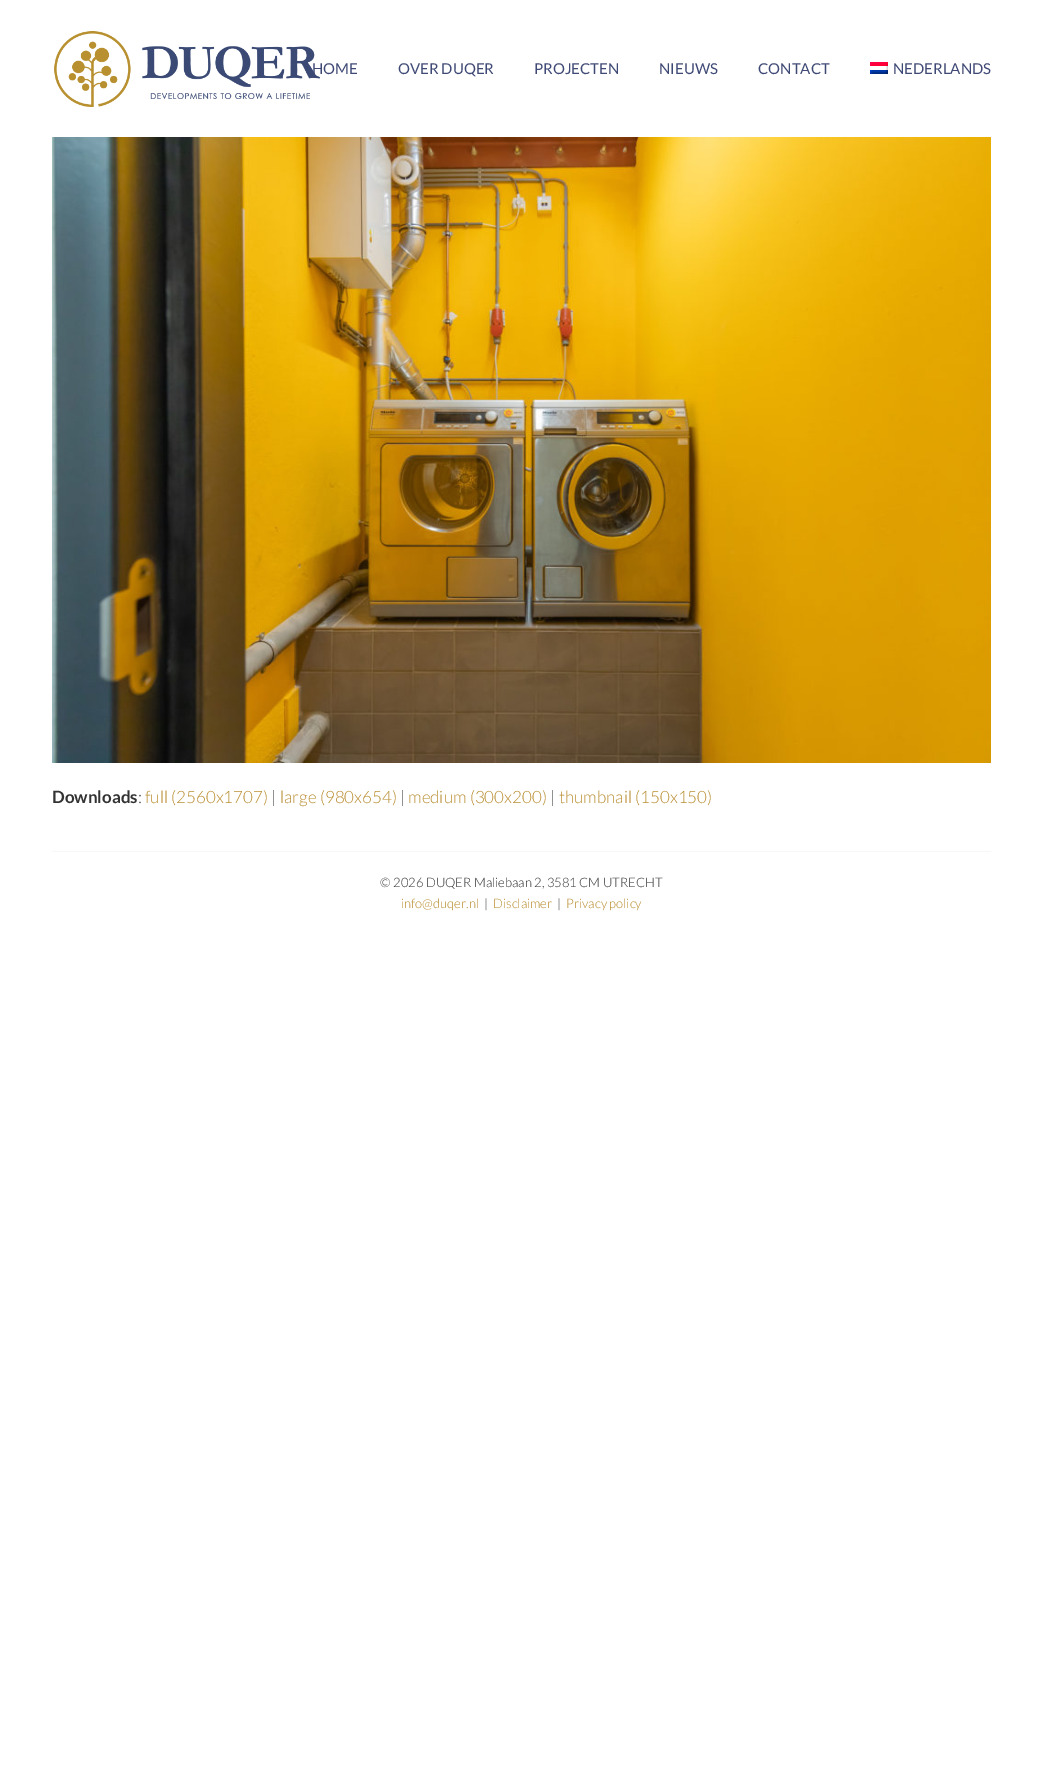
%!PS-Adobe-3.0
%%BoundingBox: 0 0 1043 1778
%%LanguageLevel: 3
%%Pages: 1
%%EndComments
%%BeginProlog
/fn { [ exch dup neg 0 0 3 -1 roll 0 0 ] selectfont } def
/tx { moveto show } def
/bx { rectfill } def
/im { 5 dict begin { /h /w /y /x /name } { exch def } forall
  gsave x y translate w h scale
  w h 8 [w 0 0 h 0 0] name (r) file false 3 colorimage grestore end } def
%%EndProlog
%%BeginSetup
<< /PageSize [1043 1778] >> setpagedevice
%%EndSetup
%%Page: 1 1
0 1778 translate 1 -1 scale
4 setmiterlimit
1 setgray
0 0 1043 1778 bx
(image0.raw) 54 31 266 76 im
/Lato-Regular 15 fn
0.247 0.286 0.459 setrgbcolor
(HOME) 312 74 tx
(OVER DUQER) 398 74 tx
(PROJECTEN) 534 74 tx
(NIEUWS) 659 74 tx
(CONTACT) 758 74 tx
(image1.raw) 870 62 18 12 im
(NEDERLANDS) 893 74 tx
(image2.raw) 52 137 939 626 im
/Lato-Bold 17 fn
0.2 setgray
(Downloads) 52 803 tx
/Lato-Light 17 fn
(:) 138 803 tx
0.725 0.553 0.184 setrgbcolor
(full \(2560x1707\)) 145 803 tx
0.2 setgray
(|) 271 803 tx
0.725 0.553 0.184 setrgbcolor
(large \(980x654\)) 280 803 tx
0.2 setgray
(|) 400 803 tx
0.725 0.553 0.184 setrgbcolor
(medium \(300x200\)) 408 803 tx
0.2 setgray
(|) 550 803 tx
0.725 0.553 0.184 setrgbcolor
(thumbnail \(150x150\)) 559 803 tx
0.969 setgray
52 851 939 1 bx
/Lato-Light 13 fn
0.2 setgray
(© 2026 DUQER Maliebaan 2, 3581 CM UTRECHT) 380 887 tx
0.725 0.553 0.184 setrgbcolor
(info@duqer.nl) 401 908 tx
0.2 setgray
(|) 484 908 tx
0.725 0.553 0.184 setrgbcolor
(Disclaimer) 493 908 tx
0.2 setgray
(|) 557 908 tx
0.725 0.553 0.184 setrgbcolor
(Privacy policy) 566 908 tx
showpage
%%EOF
